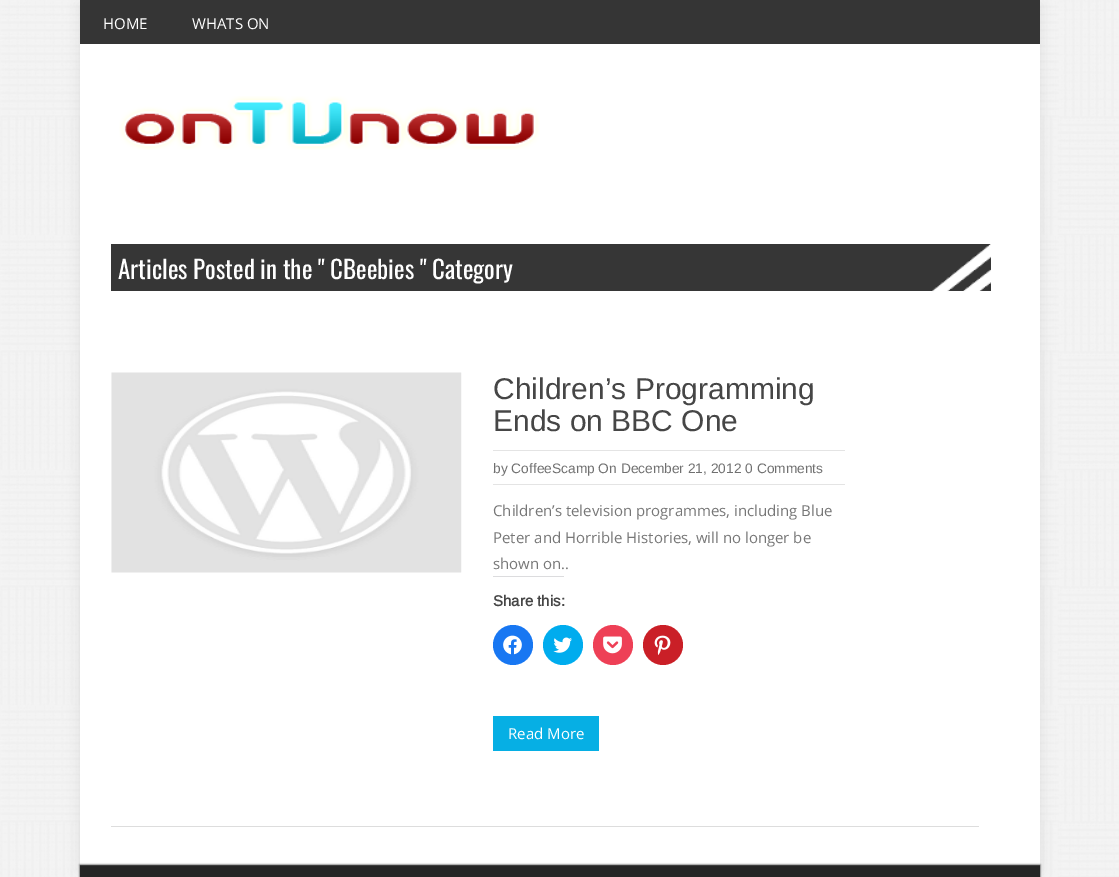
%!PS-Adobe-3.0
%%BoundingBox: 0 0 1119 877
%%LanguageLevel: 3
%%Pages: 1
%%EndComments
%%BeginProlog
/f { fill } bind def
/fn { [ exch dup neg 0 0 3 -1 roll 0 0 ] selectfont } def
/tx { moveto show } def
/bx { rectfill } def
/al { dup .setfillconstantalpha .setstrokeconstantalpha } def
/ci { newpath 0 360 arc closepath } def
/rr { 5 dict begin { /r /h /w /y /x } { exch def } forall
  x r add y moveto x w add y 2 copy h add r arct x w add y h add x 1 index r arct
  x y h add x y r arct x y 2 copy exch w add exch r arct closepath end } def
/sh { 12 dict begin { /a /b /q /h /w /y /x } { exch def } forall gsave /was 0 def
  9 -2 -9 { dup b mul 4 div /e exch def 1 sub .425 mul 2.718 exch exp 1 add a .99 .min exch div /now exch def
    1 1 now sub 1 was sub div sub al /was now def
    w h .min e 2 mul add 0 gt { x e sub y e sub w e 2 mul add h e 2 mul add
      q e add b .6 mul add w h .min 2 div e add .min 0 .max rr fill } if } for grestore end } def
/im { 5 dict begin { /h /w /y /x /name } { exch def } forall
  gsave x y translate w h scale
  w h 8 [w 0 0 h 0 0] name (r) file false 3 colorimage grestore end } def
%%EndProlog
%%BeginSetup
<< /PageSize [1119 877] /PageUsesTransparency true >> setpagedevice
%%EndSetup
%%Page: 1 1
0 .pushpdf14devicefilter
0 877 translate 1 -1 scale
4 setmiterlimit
1 setgray
0 0 1119 877 bx
(image0.raw) 0 0 1119 877 im
0 setgray
80 5 960 865 0 6 0.08 sh
1 setgray
80 44 960 821 bx
0.208 setgray
80 0 960 44 bx
/OpenSans-Regular 15 fn
1 setgray
(HOME) 103 29 tx
(WHATS ON) 192 29 tx
(image1.raw) 119 96 421 54 im
0.212 setgray
111 244 880 47 bx
(image2.raw) 932 244 59 48 im
/Oswald-Regular 25 fn
1 setgray
(Articles Posted in the " CBeebies " Category) 118 279 tx
(image3.raw) 111 372 351 201 im
/Arimo-Regular 30 fn
0.275 setgray
(Children’s Programming) 493 399 tx
(Ends on BBC One) 493 431 tx
0.894 setgray
493 450 352 1 bx
493 484 352 1 bx
/Arimo-Regular 13.75 fn
0.439 setgray
(by CoffeeScamp On December 21, 2012 0 Comments) 493 473 tx
/OpenSans-Regular 15 fn
0.467 setgray
(Children’s television programmes, including Blue) 493 516 tx
(Peter and Horrible Histories, will no longer be) 493 543 tx
(shown on..) 493 569 tx
0.863 0.863 0.871 setrgbcolor
493 576 71 1 bx
/Arimo-Bold 15 fn
0.275 setgray
(Share this:) 493 606 tx
0.094 0.467 0.949 setrgbcolor
513 645 20 ci f
(image4.raw) 503 635 19 20 im
0 0.675 0.933 setrgbcolor
563 645 20 ci f
(image5.raw) 553 637 19 16 im
0.933 0.251 0.337 setrgbcolor
613 645 20 ci f
(image6.raw) 603 636 19 18 im
0.792 0.122 0.153 setrgbcolor
663 645 20 ci f
(image7.raw) 654 635 17 20 im
0.024 0.686 0.894 setrgbcolor
493 716 106 35 bx
/OpenSans-Regular 15 fn
1 setgray
(Read More) 508 739 tx
0.867 setgray
111 826 868 1 bx
0 setgray
80 865 960 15 0 1 1 sh
0.145 setgray
80 866 960 11 bx
0.239 setgray
80 865 960 1 bx
.poppdf14devicefilter showpage
%%EOF
